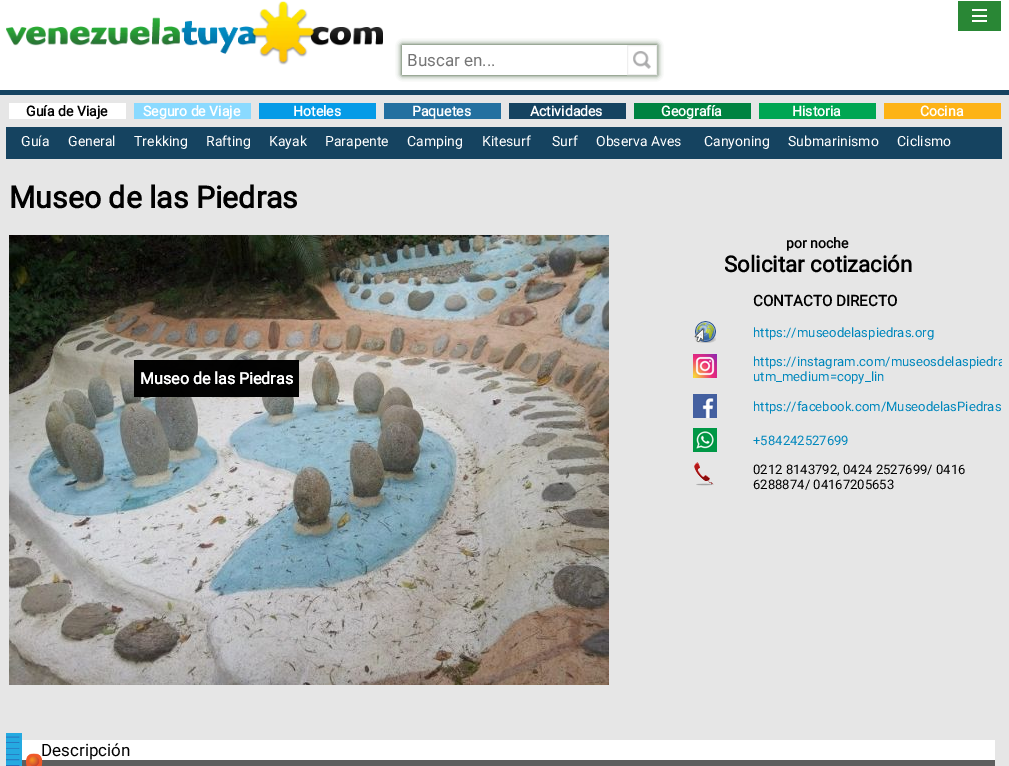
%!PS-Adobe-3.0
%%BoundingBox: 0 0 1009 766
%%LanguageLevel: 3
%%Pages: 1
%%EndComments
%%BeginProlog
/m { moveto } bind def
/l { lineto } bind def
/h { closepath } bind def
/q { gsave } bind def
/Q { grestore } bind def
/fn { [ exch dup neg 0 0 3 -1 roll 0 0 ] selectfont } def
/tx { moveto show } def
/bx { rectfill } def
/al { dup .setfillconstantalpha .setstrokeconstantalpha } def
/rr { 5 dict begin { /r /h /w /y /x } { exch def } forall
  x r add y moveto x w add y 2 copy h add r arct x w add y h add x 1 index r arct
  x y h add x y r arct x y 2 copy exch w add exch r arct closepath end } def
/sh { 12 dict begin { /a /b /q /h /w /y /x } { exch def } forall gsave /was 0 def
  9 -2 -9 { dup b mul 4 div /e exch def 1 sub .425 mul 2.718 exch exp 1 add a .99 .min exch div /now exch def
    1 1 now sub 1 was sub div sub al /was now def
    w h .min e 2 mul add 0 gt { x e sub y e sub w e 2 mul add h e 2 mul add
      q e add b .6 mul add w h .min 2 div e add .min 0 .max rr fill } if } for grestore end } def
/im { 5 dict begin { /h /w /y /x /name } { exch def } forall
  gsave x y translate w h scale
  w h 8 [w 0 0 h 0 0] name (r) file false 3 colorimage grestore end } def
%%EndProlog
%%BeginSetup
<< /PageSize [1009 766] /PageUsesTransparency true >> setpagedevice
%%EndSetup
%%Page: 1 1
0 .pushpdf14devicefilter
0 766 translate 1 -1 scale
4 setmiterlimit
1 setgray
0 0 1009 766 bx
(image0.raw) 6 1 377 64 im
0.161 0.529 0.208 setrgbcolor
958 1 43 30 bx
1 setgray
972 15 15 2 bx
972 9 15 2 bx
972 20 15 2 bx
q
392 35 m 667 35 l 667 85 l 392 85 l h 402 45 m 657 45 l 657 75 l 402 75 l h eoclip newpath
0.106 0.235 0.067 setrgbcolor
402 45 255 30 0 3 1 sh
Q
/Roboto-Regular 17 fn
0.459 setgray
(Buscar en...) 407 66 tx
0.937 setgray
627.5 45.5 29 29 rectstroke
(image1.raw) 633 51 18 18 im
0.902 setgray
0 95 1009 671 bx
0.082 0.263 0.376 setrgbcolor
0 90 1009 5 bx
1 setgray
9 103 117 16 bx
/Roboto-Bold 14 fn
0 setgray
(Guía de Viaje) 26 116 tx
0.541 0.855 1 setrgbcolor
134 103 117 16 bx
1 setgray
(Seguro de Viaje) 143 116 tx
0.02 0.608 0.906 setrgbcolor
259 103 117 16 bx
1 setgray
(Hoteles) 293 116 tx
0.137 0.439 0.627 setrgbcolor
384 103 117 16 bx
1 setgray
(Paquetes) 412 116 tx
0.082 0.263 0.376 setrgbcolor
509 103 117 16 bx
1 setgray
(Actividades) 530 116 tx
0 0.514 0.255 setrgbcolor
634 103 117 16 bx
1 setgray
(Geografía) 661 116 tx
0 0.651 0.322 setrgbcolor
759 103 117 16 bx
1 setgray
(Historia) 792 116 tx
0.992 0.702 0.086 setrgbcolor
884 103 117 16 bx
1 setgray
(Cocina) 920 116 tx
0.082 0.263 0.376 setrgbcolor
6 127 996 32 bx
/Roboto-Regular 14 fn
1 setgray
(Guía) 21 146 tx
(General) 68 146 tx
(Trekking) 134 146 tx
(Rafting) 206 146 tx
(Kayak) 269 146 tx
(Parapente) 325 146 tx
(Camping) 407 146 tx
(Kitesurf) 482 146 tx
(Surf) 552 146 tx
(Observa Aves) 596 146 tx
(Canyoning) 704 146 tx
(Submarinismo) 788 146 tx
(Ciclismo) 897 146 tx
/Roboto-Bold 30.25 fn
0 setgray
(Museo de las Piedras) 9 208 tx
(image2.raw) 9 235 600 450 im
0.5 al
134 360 165 37 bx
134 360 165 37 bx
134 360 165 37 bx
134 360 165 37 bx
134 360 165 37 bx
134 360 165 37 bx
/Roboto-Bold 16 fn
1 al
1 setgray
(Museo de las Piedras) 140 384 tx
0.5 al
0 setgray
141 372 151 13 bx
1 al
1 setgray
(Museo de las Piedras) 140 384 tx
/Roboto-Bold 14 fn
0 setgray
(por noche) 786 248 tx
/Roboto-Bold 22.25 fn
(Solicitar cotización) 724 272 tx
/Roboto-Bold 15.1 fn
(CONTACTO DIRECTO) 753 306 tx
(image3.raw) 694 321 22 22 im
/Roboto-Regular 13.1 fn
0 0.529 0.737 setrgbcolor
(https://museodelaspiedras.org) 753 337 tx
(image4.raw) 693 354 24 24 im
q
6 170 996 540 rectclip
(https://instagram.com/museosdelaspiedra) 753 366 tx
Q
(utm_medium=copy_lin) 753 381 tx
(image5.raw) 693 394 24 24 im
(https://facebook.com/MuseodelasPiedras) 753 411 tx
(image6.raw) 693 428 24 24 im
(+584242527699) 753 445 tx
(image7.raw) 694 462 20 24 im
0 setgray
(0212 8143792, 0424 2527699/ 0416) 753 474 tx
(6288874/ 04167205653) 753 489 tx
1 setgray
22 740 973 20 bx
(image8.raw) 6 733 16 33 im
/Roboto-Regular 17 fn
0 setgray
(Descripción) 41 756 tx
0.369 setgray
22 760 973 6 bx
(image9.raw) 26 753 17 13 im
.poppdf14devicefilter showpage
%%EOF
